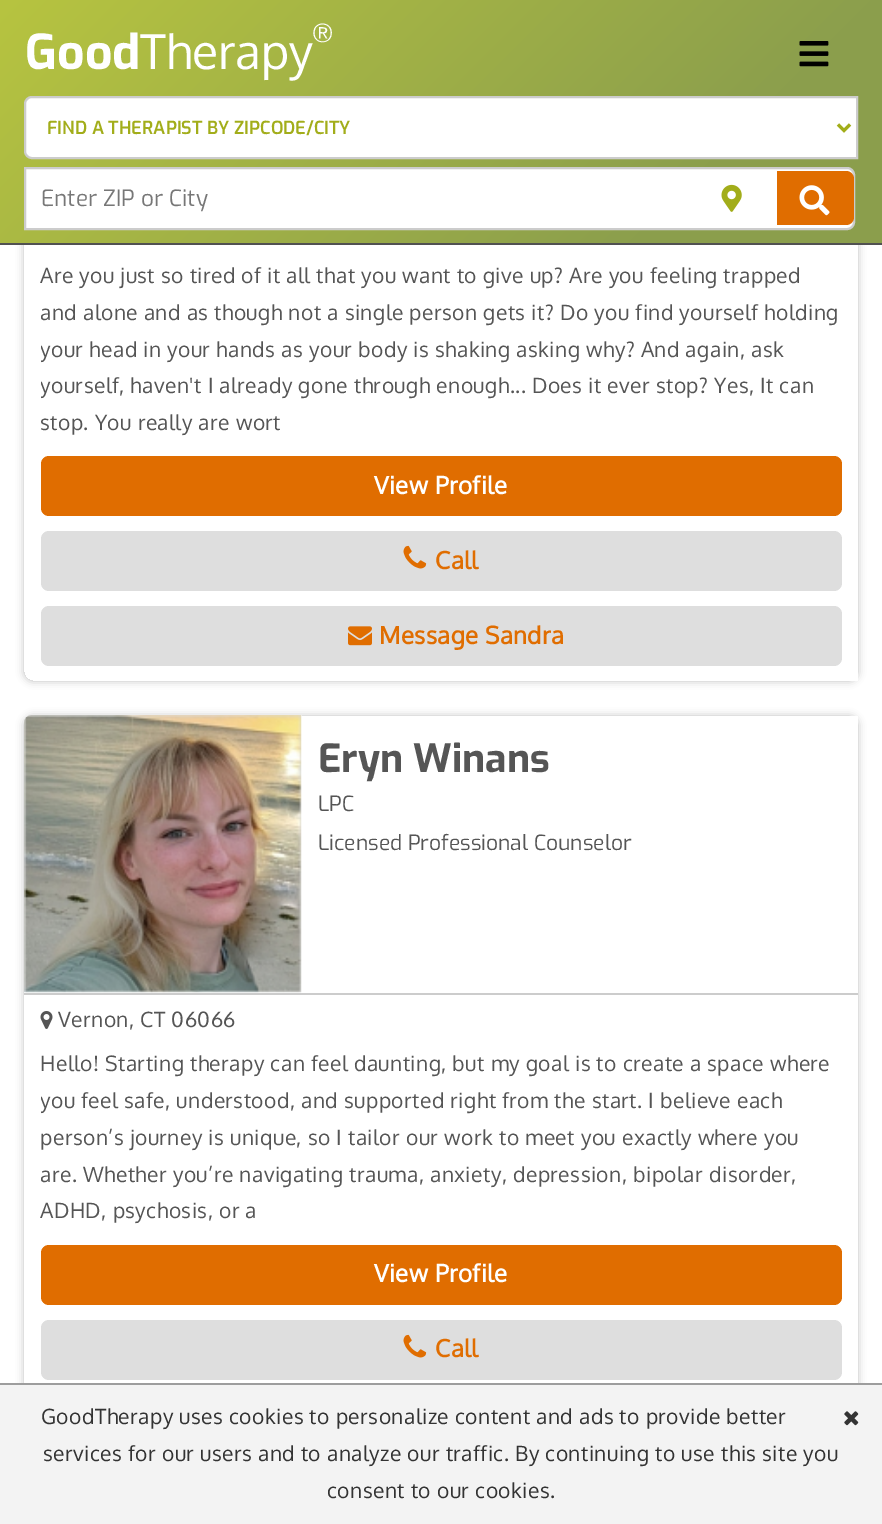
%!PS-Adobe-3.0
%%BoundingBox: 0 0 882 1524
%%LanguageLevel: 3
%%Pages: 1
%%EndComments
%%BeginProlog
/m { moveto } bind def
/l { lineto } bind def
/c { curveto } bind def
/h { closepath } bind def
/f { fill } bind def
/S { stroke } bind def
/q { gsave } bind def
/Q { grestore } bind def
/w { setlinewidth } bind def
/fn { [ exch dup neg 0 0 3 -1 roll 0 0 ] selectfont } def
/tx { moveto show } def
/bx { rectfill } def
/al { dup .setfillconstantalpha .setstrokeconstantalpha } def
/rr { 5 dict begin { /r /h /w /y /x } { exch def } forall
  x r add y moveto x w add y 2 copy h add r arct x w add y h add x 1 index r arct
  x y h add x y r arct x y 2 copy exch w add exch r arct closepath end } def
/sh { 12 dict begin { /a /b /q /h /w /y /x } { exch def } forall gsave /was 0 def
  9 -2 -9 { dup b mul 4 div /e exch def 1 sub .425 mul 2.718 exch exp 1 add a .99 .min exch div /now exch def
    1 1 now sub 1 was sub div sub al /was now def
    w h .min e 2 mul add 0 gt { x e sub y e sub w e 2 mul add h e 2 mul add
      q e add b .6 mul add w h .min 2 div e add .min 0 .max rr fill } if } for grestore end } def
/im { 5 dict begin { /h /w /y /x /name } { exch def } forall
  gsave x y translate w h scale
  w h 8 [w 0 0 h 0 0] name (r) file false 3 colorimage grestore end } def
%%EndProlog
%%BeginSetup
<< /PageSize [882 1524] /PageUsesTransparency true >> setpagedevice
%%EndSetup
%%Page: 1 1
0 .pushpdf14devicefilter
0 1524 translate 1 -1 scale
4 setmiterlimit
1 setgray
0 0 882 1524 bx
q
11 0 m 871 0 l 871 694 l 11 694 l h 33 -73 m 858 -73 l 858 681 l 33 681 l 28 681 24 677 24 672 c 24 -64 l 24 -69 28 -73 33 -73 c h eoclip newpath
0.259 setgray
24 -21 834 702 9 4 0.34 sh
Q
q 0 0 m 882 0 l 882 243 l 0 243 l h clip newpath
<< /ShadingType 2 /ColorSpace /DeviceRGB /Coords [160 -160 722 403] /Extend [true true] /Function << /FunctionType 3 /Domain [0 1] /Functions [<< /FunctionType 2 /Domain [0 1] /C0 [0.718 0.769 0.251] /C1 [0.545 0.62 0.298] /N 1 >> << /FunctionType 2 /Domain [0 1] /C0 [0.545 0.62 0.298] /C1 [0.545 0.62 0.298] /N 1 >>] /Bounds [0.78] /Encode [0 1 0 1] >> >> shfill Q
0.318 setgray
0 243 882 2 bx
/Exo-Bold 48 fn
1 setgray
(Good) 25 69 tx
/Oxygen-Regular 48 fn
(Therapy) 140 69 tx
/Oxygen-Regular 24 fn
(®) 312 42 tx
(image0.raw) 799 41 30 26 im
32 97 m 857 97 l 857 158 l 32 158 l 28 158 25 155 25 151 c 25 104 l 25 100 28 97 32 97 c h q f Q
0.8 setgray
2 w
S
0.635 0.678 0.102 setrgbcolor
3 w
838 124.5 m 844 130.5 l 850 124.5 l S
/Exo-SemiBold 18 fn
(FIND A THERAPIST BY ZIPCODE/CITY) 47 134 tx
1 setgray
25 168 m 847 168 l 851 168 854 171 854 175 c 854 222 l 854 226 851 229 847 229 c 25 229 l h q f Q
0.8 setgray
2 w
S
/Exo-Regular 22.5 fn
0.467 setgray
(Enter ZIP or City) 41 206 tx
0.878 0.427 0 setrgbcolor
777 171 m 846 171 l 850.5 171 854 174.5 854 179 c 854 217 l 854 221.5 850.5 225 846 225 c 777 225 l h f
(image1.raw) 799 185 31 31 im
(image2.raw) 721 184 21 28 im
/Oxygen-Regular 21 fn
0.333 setgray
40 283 m 0.45 0 (Are you just so tired of it all that you want to give up? Are you feeling trapped) ashow
40 320 m 0.45 0 (and alone and as though not a single person gets it? Do you find yourself holding) ashow
q
41 258 801 183 rectclip
40 357 m 0.45 0 (your head in your hands as your body is shaking asking why? And again, ask) ashow
40 393 m 0.45 0 (yourself, haven't I already gone through enough... Does it ever stop? Yes, It can) ashow
Q
40 430 m 0.45 0 (stop. You really are wort) ashow
0.878 0.427 0 setrgbcolor
41 456 801 60 8 rr f
/Oxygen-Bold 24 fn
1 setgray
374 494 m 0.45 0 (View Profile) ashow
0.871 setgray
41 531 801 60 8 rr f
(image3.raw) 403 545 24 24 im
0.878 0.427 0 setrgbcolor
435 569 m 0.45 0 (Call) ashow
0.871 setgray
41 606 801 60 8 rr f
(image4.raw) 348 626 24 20 im
0.878 0.427 0 setrgbcolor
379 644 m 0.45 0 (Message Sandra) ashow
q
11 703 m 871 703 l 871 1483 l 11 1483 l h 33 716 m 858 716 l 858 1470 l 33 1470 l 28 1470 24 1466 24 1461 c 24 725 l 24 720 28 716 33 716 c h eoclip newpath
0.259 setgray
24 716 834 754 9 4 0.34 sh
Q
(image5.raw) 24 715 278 278 im
/Exo-Bold 39 fn
0.333 setgray
(Eryn Winans) 318 772 tx
/Exo-Regular 21 fn
(LPC) 318 811 tx
(Licensed Professional Counselor) 318 850 tx
0.8 setgray
24 993 834 2 bx
(image6.raw) 40 1011 13 18 im
/Oxygen-Regular 21 fn
0.333 setgray
58 1027 m 0.45 0 (Vernon, CT 06066) ashow
40 1071 m 0.45 0 (Hello! Starting therapy can feel daunting, but my goal is to create a space where) ashow
q
41 1046 801 184 rectclip
40 1108 m 0.45 0 (you feel safe, understood, and supported right from the start. I believe each) ashow
Q
40 1145 m 0.45 0 (person’s journey is unique, so I tailor our work to meet you exactly where you) ashow
40 1182 m 0.45 0 (are. Whether you’re navigating trauma, anxiety, depression, bipolar disorder,) ashow
40 1218 m 0.45 0 (ADHD, psychosis, or a) ashow
0.878 0.427 0 setrgbcolor
41 1245 801 60 8 rr f
/Oxygen-Bold 24 fn
1 setgray
374 1282 m 0.45 0 (View Profile) ashow
0.871 setgray
41 1320 801 60 8 rr f
(image3.raw) 403 1334 24 24 im
0.878 0.427 0 setrgbcolor
435 1357 m 0.45 0 (Call) ashow
0.953 setgray
0 1385 882 139 bx
0.616 setgray
0 1383 882 2 bx
/Oxygen-Regular 21 fn
0.2 setgray
41 1424 m 0.45 0 (GoodTherapy uses cookies to personalize content and ads to provide better) ashow
(image7.raw) 844 1411 15 15 im
43 1461 m 0.45 0 (services for our users and to analyze our traffic. By continuing to use this site you) ashow
327 1498 m 0.45 0 (consent to our cookies.) ashow
.poppdf14devicefilter showpage
%%EOF
